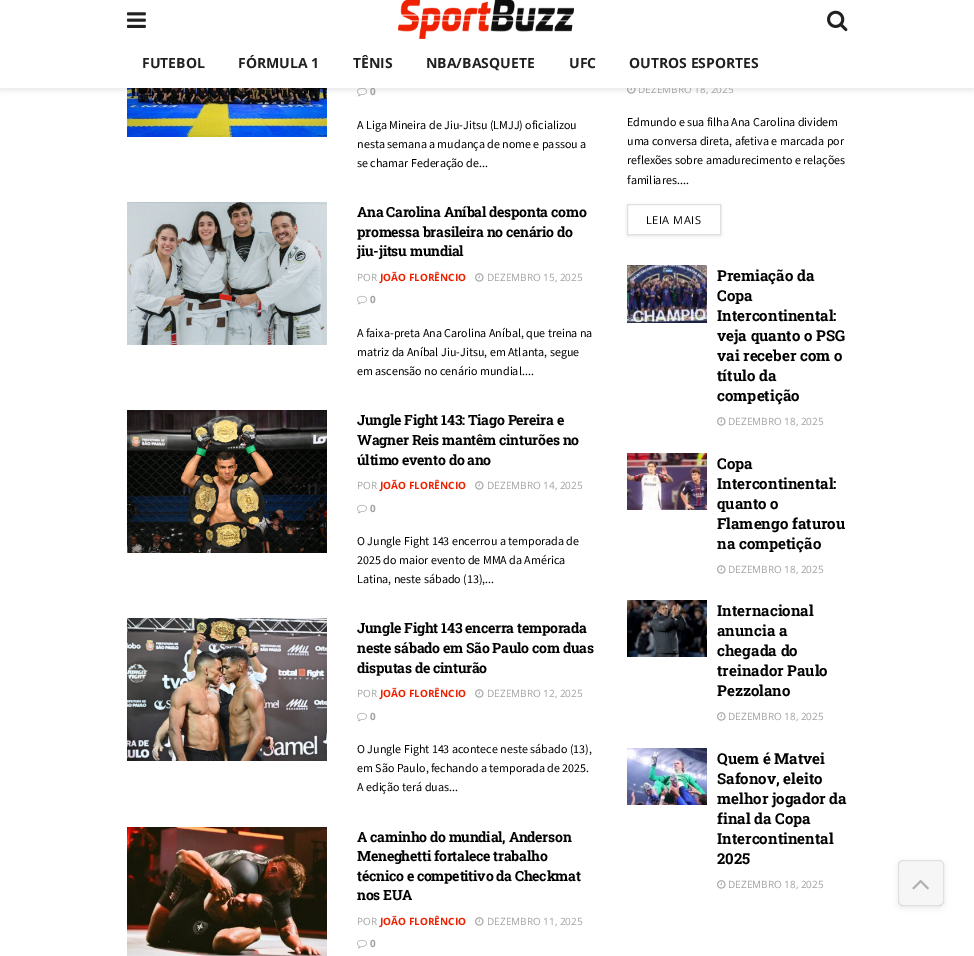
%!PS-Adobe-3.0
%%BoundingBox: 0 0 974 956
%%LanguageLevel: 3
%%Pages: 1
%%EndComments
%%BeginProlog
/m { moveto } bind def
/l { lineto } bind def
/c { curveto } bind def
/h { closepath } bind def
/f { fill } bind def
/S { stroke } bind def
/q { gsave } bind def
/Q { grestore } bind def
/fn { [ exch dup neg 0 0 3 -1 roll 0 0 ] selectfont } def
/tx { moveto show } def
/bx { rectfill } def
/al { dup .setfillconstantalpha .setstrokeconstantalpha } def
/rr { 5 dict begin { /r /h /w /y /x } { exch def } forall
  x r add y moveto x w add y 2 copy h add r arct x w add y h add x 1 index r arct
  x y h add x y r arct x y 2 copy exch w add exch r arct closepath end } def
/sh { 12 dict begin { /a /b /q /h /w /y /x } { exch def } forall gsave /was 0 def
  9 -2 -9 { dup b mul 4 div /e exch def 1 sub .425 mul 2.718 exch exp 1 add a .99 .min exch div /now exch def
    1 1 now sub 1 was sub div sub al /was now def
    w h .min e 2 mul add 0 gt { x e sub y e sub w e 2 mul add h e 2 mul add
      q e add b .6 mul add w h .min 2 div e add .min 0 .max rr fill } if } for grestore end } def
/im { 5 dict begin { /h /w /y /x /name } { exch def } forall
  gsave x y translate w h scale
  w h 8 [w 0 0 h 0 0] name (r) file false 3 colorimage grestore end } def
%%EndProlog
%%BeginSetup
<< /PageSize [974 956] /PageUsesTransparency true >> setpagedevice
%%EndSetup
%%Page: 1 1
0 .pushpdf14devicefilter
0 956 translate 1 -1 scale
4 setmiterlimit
1 setgray
0 0 974 956 bx
(image3.raw) 127 88 200 49 im
(image4.raw) 357 88 10 9 im
(image11.raw) 627 88 9 6 im
0 setgray
0 2 974 88 0 3 0.1 sh
/OpenSans-Bold 10 fn
0.627 setgray
(0) 370 95 tx
/OpenSans-Regular 10 fn
(DEZEMBRO 18, 2025) 638 93 tx
1 setgray
0 0 974 88 bx
(image0.raw) 127 12 19 16 im
(image1.raw) 398 0 176 39 im
(image2.raw) 827 10 21 22 im
/OpenSans-Bold 14 fn
0.129 setgray
(FUTEBOL) 142 68 tx
(FÓRMULA 1) 238 68 tx
(TÊNIS) 353 68 tx
(NBA/BASQUETE) 426 68 tx
(UFC) 569 68 tx
(OUTROS ESPORTES) 629 68 tx
/SourceSansPro-Regular 12 fn
0 setgray
(A Liga Mineira de Jiu-Jitsu \(LMJJ\) oficializou) 357 129 tx
(nesta semana a mudança de nome e passou a) 357 148 tx
(se chamar Federação de...) 357 167 tx
(image5.raw) 127 202 200 143 im
/RobotoSlab-Bold 14 fn
357 217 m -0.3 0 (Ana Carolina Aníbal desponta como) ashow
357 237 m -0.3 0 (promessa brasileira no cenário do) ashow
357 256 m -0.3 0 (jiu-jitsu mundial) ashow
/OpenSans-Regular 10 fn
0.627 setgray
(POR) 357 281 tx
/OpenSans-Bold 10 fn
0.933 0.133 0.004 setrgbcolor
(JOÃO FLORÊNCIO) 380 281 tx
(image6.raw) 475 273 9 9 im
/OpenSans-Regular 10 fn
0.627 setgray
(DEZEMBRO 15, 2025) 487 281 tx
(image7.raw) 357 295 10 10 im
/OpenSans-Bold 10 fn
(0) 370 303 tx
/SourceSansPro-Regular 12 fn
0 setgray
(A faixa-preta Ana Carolina Aníbal, que treina na) 357 337 tx
(matriz da Aníbal Jiu-Jitsu, em Atlanta, segue) 357 356 tx
(em ascensão no cenário mundial....) 357 375 tx
(image8.raw) 127 410 200 143 im
/RobotoSlab-Bold 14 fn
357 425 m -0.3 0 (Jungle Fight 143: Tiago Pereira e) ashow
357 445 m -0.3 0 (Wagner Reis mantêm cinturões no) ashow
357 465 m -0.3 0 (último evento do ano) ashow
/OpenSans-Regular 10 fn
0.627 setgray
(POR) 357 489 tx
/OpenSans-Bold 10 fn
0.933 0.133 0.004 setrgbcolor
(JOÃO FLORÊNCIO) 380 489 tx
(image6.raw) 475 481 9 9 im
/OpenSans-Regular 10 fn
0.627 setgray
(DEZEMBRO 14, 2025) 487 489 tx
(image7.raw) 357 504 10 10 im
/OpenSans-Bold 10 fn
(0) 370 512 tx
/SourceSansPro-Regular 12 fn
0 setgray
(O Jungle Fight 143 encerrou a temporada de) 357 545 tx
(2025 do maior evento de MMA da América) 357 564 tx
(Latina, neste sábado \(13\),...) 357 583 tx
(image9.raw) 127 618 200 143 im
/RobotoSlab-Bold 14 fn
357 633 m -0.3 0 (Jungle Fight 143 encerra temporada) ashow
357 653 m -0.3 0 (neste sábado em São Paulo com duas) ashow
357 673 m -0.3 0 (disputas de cinturão) ashow
/OpenSans-Regular 10 fn
0.627 setgray
(POR) 357 697 tx
/OpenSans-Bold 10 fn
0.933 0.133 0.004 setrgbcolor
(JOÃO FLORÊNCIO) 380 697 tx
(image6.raw) 475 689 9 9 im
/OpenSans-Regular 10 fn
0.627 setgray
(DEZEMBRO 12, 2025) 487 697 tx
(image7.raw) 357 712 10 10 im
/OpenSans-Bold 10 fn
(0) 370 720 tx
/SourceSansPro-Regular 12 fn
0 setgray
(O Jungle Fight 143 acontece neste sábado \(13\),) 357 753 tx
(em São Paulo, fechando a temporada de 2025.) 357 772 tx
(A edição terá duas...) 357 791 tx
(image10.raw) 127 827 200 129 im
/RobotoSlab-Bold 14 fn
357 842 m -0.3 0 (A caminho do mundial, Anderson) ashow
357 861 m -0.3 0 (Meneghetti fortalece trabalho) ashow
357 881 m -0.3 0 (técnico e competitivo da Checkmat) ashow
357 900 m -0.3 0 (nos EUA) ashow
/OpenSans-Regular 10 fn
0.627 setgray
(POR) 357 925 tx
/OpenSans-Bold 10 fn
0.933 0.133 0.004 setrgbcolor
(JOÃO FLORÊNCIO) 380 925 tx
(image6.raw) 475 917 9 9 im
/OpenSans-Regular 10 fn
0.627 setgray
(DEZEMBRO 11, 2025) 487 925 tx
(image7.raw) 357 939 10 10 im
/OpenSans-Bold 10 fn
(0) 370 947 tx
/SourceSansPro-Regular 12 fn
0 setgray
(Edmundo e sua filha Ana Carolina dividem) 627 126 tx
(uma conversa direta, afetiva e marcada por) 627 145 tx
(reflexões sobre amadurecimento e relações) 627 164 tx
(familiares....) 627 184 tx
q
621 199 m 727 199 l 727 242 l 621 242 l h 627 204 m 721 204 l 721 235 l 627 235 l h eoclip newpath
627 205 94 31 0 1.5 0.1 sh
Q
0.878 setgray
627.5 204.5 93 30 rectstroke
/OpenSans-Regular 11 fn
0 setgray
646 224 m 0.5 0 (LEIA MAIS) ashow
(image12.raw) 627 265 80 58 im
/RobotoSlab-Bold 15 fn
(Premiação da) 717 281 tx
(Copa) 717 301 tx
(Intercontinental:) 717 321 tx
(veja quanto o PSG) 717 341 tx
(vai receber com o) 717 361 tx
(título da) 717 381 tx
(competição) 717 401 tx
(image6.raw) 717 417 9 9 im
/OpenSans-Regular 10 fn
0.627 setgray
(DEZEMBRO 18, 2025) 728 425 tx
(image13.raw) 627 453 80 57 im
/RobotoSlab-Bold 15 fn
0 setgray
(Copa) 717 469 tx
(Intercontinental:) 717 489 tx
(quanto o) 717 509 tx
(Flamengo faturou) 717 529 tx
(na competição) 717 549 tx
(image6.raw) 717 565 9 9 im
/OpenSans-Regular 10 fn
0.627 setgray
(DEZEMBRO 18, 2025) 728 573 tx
(image14.raw) 627 600 80 57 im
/RobotoSlab-Bold 15 fn
0 setgray
(Internacional) 717 616 tx
(anuncia a) 717 636 tx
(chegada do) 717 656 tx
(treinador Paulo) 717 676 tx
(Pezzolano) 717 696 tx
(image6.raw) 717 712 9 9 im
/OpenSans-Regular 10 fn
0.627 setgray
(DEZEMBRO 18, 2025) 728 720 tx
(image15.raw) 627 748 80 57 im
/RobotoSlab-Bold 15 fn
0 setgray
(Quem é Matvei) 717 764 tx
(Safonov, eleito) 717 784 tx
(melhor jogador da) 717 804 tx
(final da Copa) 717 824 tx
(Intercontinental) 717 844 tx
(2025) 717 864 tx
(image6.raw) 717 880 9 9 im
/OpenSans-Regular 10 fn
0.627 setgray
(DEZEMBRO 18, 2025) 728 888 tx
q
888 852 m 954 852 l 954 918 l 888 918 l h 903 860 m 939 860 l 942 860 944 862 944 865 c 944 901 l 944 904 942 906 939 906 c 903 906 l 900 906 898 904 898 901 c 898 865 l 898 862 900 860 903 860 c h eoclip newpath
0.2 setgray
898 862 46 46 5 3 0.1 sh
Q
0.15 al
0.765 setgray
898 860 46 46 5 rr f
0.11 al
0.2 setgray
898.5 860.5 45 45 4.5 rr S
1 al
(image16.raw) 912 879 17 11 im
.poppdf14devicefilter showpage
%%EOF
